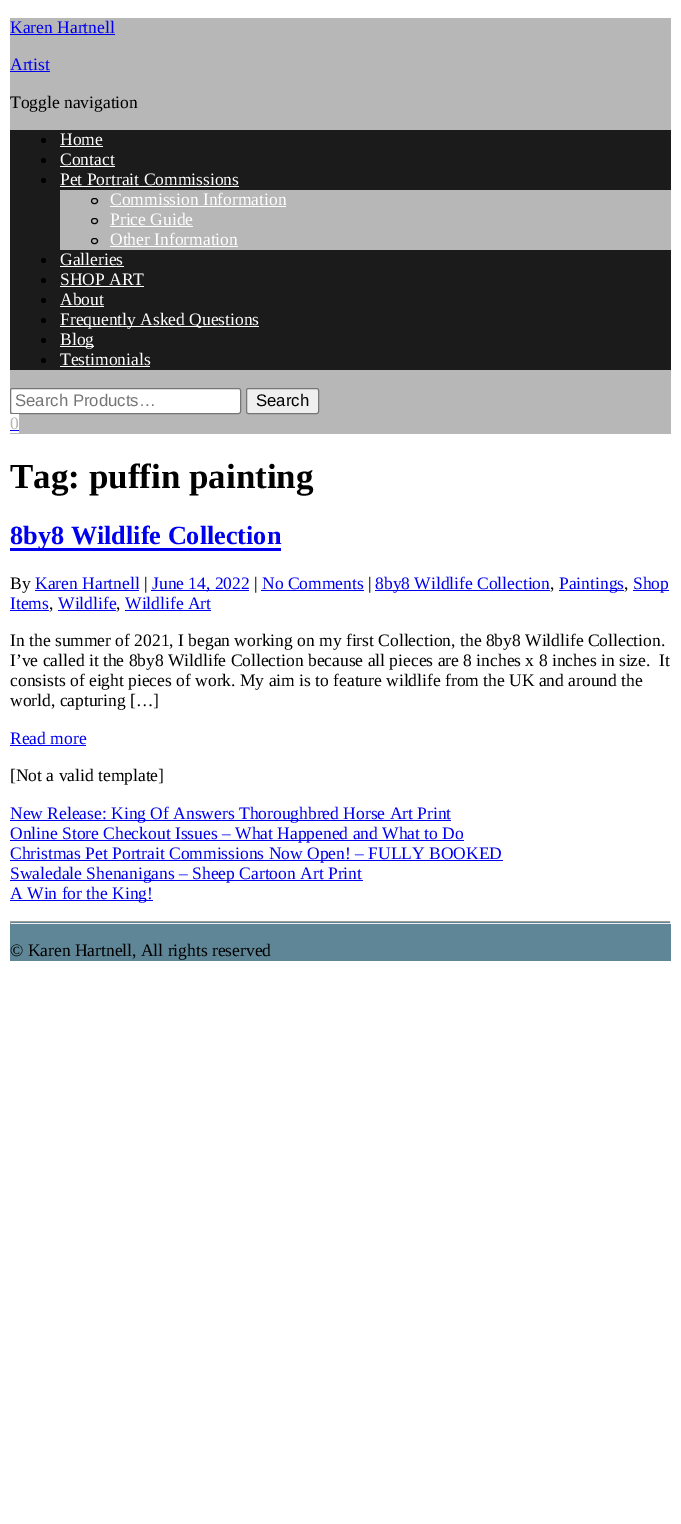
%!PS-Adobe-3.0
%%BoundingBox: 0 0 681 1524
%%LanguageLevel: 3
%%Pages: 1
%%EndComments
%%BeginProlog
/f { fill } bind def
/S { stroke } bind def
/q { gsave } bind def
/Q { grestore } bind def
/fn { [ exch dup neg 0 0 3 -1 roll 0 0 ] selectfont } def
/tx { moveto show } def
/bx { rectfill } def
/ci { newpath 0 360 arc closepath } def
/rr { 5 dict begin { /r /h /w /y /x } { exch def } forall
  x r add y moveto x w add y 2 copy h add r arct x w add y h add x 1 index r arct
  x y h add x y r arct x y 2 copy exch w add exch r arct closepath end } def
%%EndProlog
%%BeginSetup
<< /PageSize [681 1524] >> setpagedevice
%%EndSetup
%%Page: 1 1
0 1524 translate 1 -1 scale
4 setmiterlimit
1 setgray
0 0 681 1524 bx
0.718 setgray
10 18 661 416 bx
/LiberationSerif-Regular 17.5 fn
0 0 0.933 setrgbcolor
(Karen Hartnell) 10 33 tx
10 34 105 1 bx
(Artist) 10 70 tx
10 71 40 1 bx
0 setgray
(Toggle navigation) 10 108 tx
0.106 setgray
10 130 661 240 bx
0 setgray
43.5 140.5 2.5 ci f
1 setgray
(Home) 60 145 tx
60 146 43 1 bx
0 setgray
43.5 160.5 2.5 ci f
1 setgray
(Contact) 60 165 tx
60 166 55 1 bx
0 setgray
43.5 180.5 2.5 ci f
1 setgray
(Pet Portrait Commissions) 60 185 tx
60 186 179 1 bx
0.718 setgray
60 190 611 60 bx
0 setgray
91.5 198.5 6 5 2.5 rr S
1 setgray
(Commission Information) 110 205 tx
110 206 176 1 bx
0 setgray
91.5 218.5 6 5 2.5 rr S
1 setgray
(Price Guide) 110 225 tx
110 226 83 1 bx
0 setgray
91.5 238.5 6 5 2.5 rr S
1 setgray
(Other Information) 110 245 tx
110 246 128 1 bx
0 setgray
43.5 260.5 2.5 ci f
1 setgray
(Galleries) 60 265 tx
60 266 64 1 bx
0 setgray
43.5 280.5 2.5 ci f
1 setgray
(SHOP ART) 60 285 tx
60 286 84 1 bx
0 setgray
43.5 300.5 2.5 ci f
1 setgray
(About) 60 305 tx
60 306 44 1 bx
0 setgray
43.5 320.5 2.5 ci f
1 setgray
60 326 199 1 bx
(Frequently Asked Questions) 60 325 tx
0 setgray
43.5 340.5 2.5 ci f
1 setgray
60 346 34 1 bx
(Blog) 60 345 tx
0 setgray
43.5 360.5 2.5 ci f
1 setgray
(Testimonials) 60 365 tx
60 366 90 1 bx
10.5 388.5 230 25 2 rr q f Q
0.463 setgray
S
/LiberationSans-Regular 16.75 fn
0.459 setgray
(Search Products…) 15 406 tx
0.937 setgray
246.5 388.5 72 25 2 rr q f Q
0.463 setgray
S
0 setgray
(Search) 256 406 tx
1 setgray
10 414 9 19 bx
/LiberationSerif-Regular 17.5 fn
0.718 setgray
(0) 10 429 tx
0 0 0.933 setrgbcolor
10 430 9 1 bx
/LiberationSerif-Bold 35 fn
0 setgray
(Tag: puffin painting) 10 488 tx
0 0 0.933 setrgbcolor
10 548 271 3 bx
/LiberationSerif-Bold 26.25 fn
(8by8 Wildlife Collection) 10 544 tx
/LiberationSerif-Regular 17.5 fn
0 setgray
(By) 10 589 tx
0 0 0.933 setrgbcolor
(Karen Hartnell) 35 589 tx
35 590 104 1 bx
0 setgray
(|) 144 589 tx
0 0 0.933 setrgbcolor
151 590 98 1 bx
(June 14, 2022) 152 589 tx
0 setgray
(|) 254 589 tx
0 0 0.933 setrgbcolor
(No Comments) 262 589 tx
261 590 103 1 bx
0 setgray
(|) 368 589 tx
0 0 0.933 setrgbcolor
375 590 175 1 bx
(8by8 Wildlife Collection) 375 589 tx
0 setgray
(,) 550 589 tx
0 0 0.933 setrgbcolor
559 590 65 1 bx
(Paintings) 559 589 tx
0 setgray
(,) 624 589 tx
0 0 0.933 setrgbcolor
633 590 36 1 bx
(Shop) 633 589 tx
(Items) 10 609 tx
10 610 39 1 bx
0 setgray
(,) 49 609 tx
0 0 0.933 setrgbcolor
(Wildlife) 58 609 tx
58 610 58 1 bx
0 setgray
(,) 116 609 tx
0 0 0.933 setrgbcolor
(Wildlife Art) 125 609 tx
125 610 86 1 bx
0 setgray
(In the summer of 2021, I began working on my first Collection, the 8by8 Wildlife Collection.) 10 646 tx
(I’ve called it the 8by8 Wildlife Collection because all pieces are 8 inches x 8 inches in size.  It) 10 666 tx
(consists of eight pieces of work. My aim is to feature wildlife from the UK and around the) 10 686 tx
(world, capturing […]) 10 706 tx
0 0 0.933 setrgbcolor
(Read more) 10 744 tx
10 745 76 1 bx
0 setgray
([Not a valid template]) 10 781 tx
0 0 0.933 setrgbcolor
10 820 441 1 bx
(New Release: King Of Answers Thoroughbred Horse Art Print) 10 819 tx
10 840 454 1 bx
(Online Store Checkout Issues – What Happened and What to Do) 10 839 tx
10 860 493 1 bx
(Christmas Pet Portrait Commissions Now Open! – FULLY BOOKED) 10 859 tx
10 880 353 1 bx
(Swaledale Shenanigans – Sheep Cartoon Art Print) 10 879 tx
10 900 143 1 bx
(A Win for the King!) 10 899 tx
0.369 0.525 0.588 setrgbcolor
10 922 661 39 bx
0.624 setgray
10 921 661 1 bx
0.933 setgray
670 921 1 3 bx
10 923 661 1 bx
0.624 setgray
10 921 1 3 bx
0 setgray
(© Karen Hartnell, All rights reserved) 10 956 tx
showpage
%%EOF
